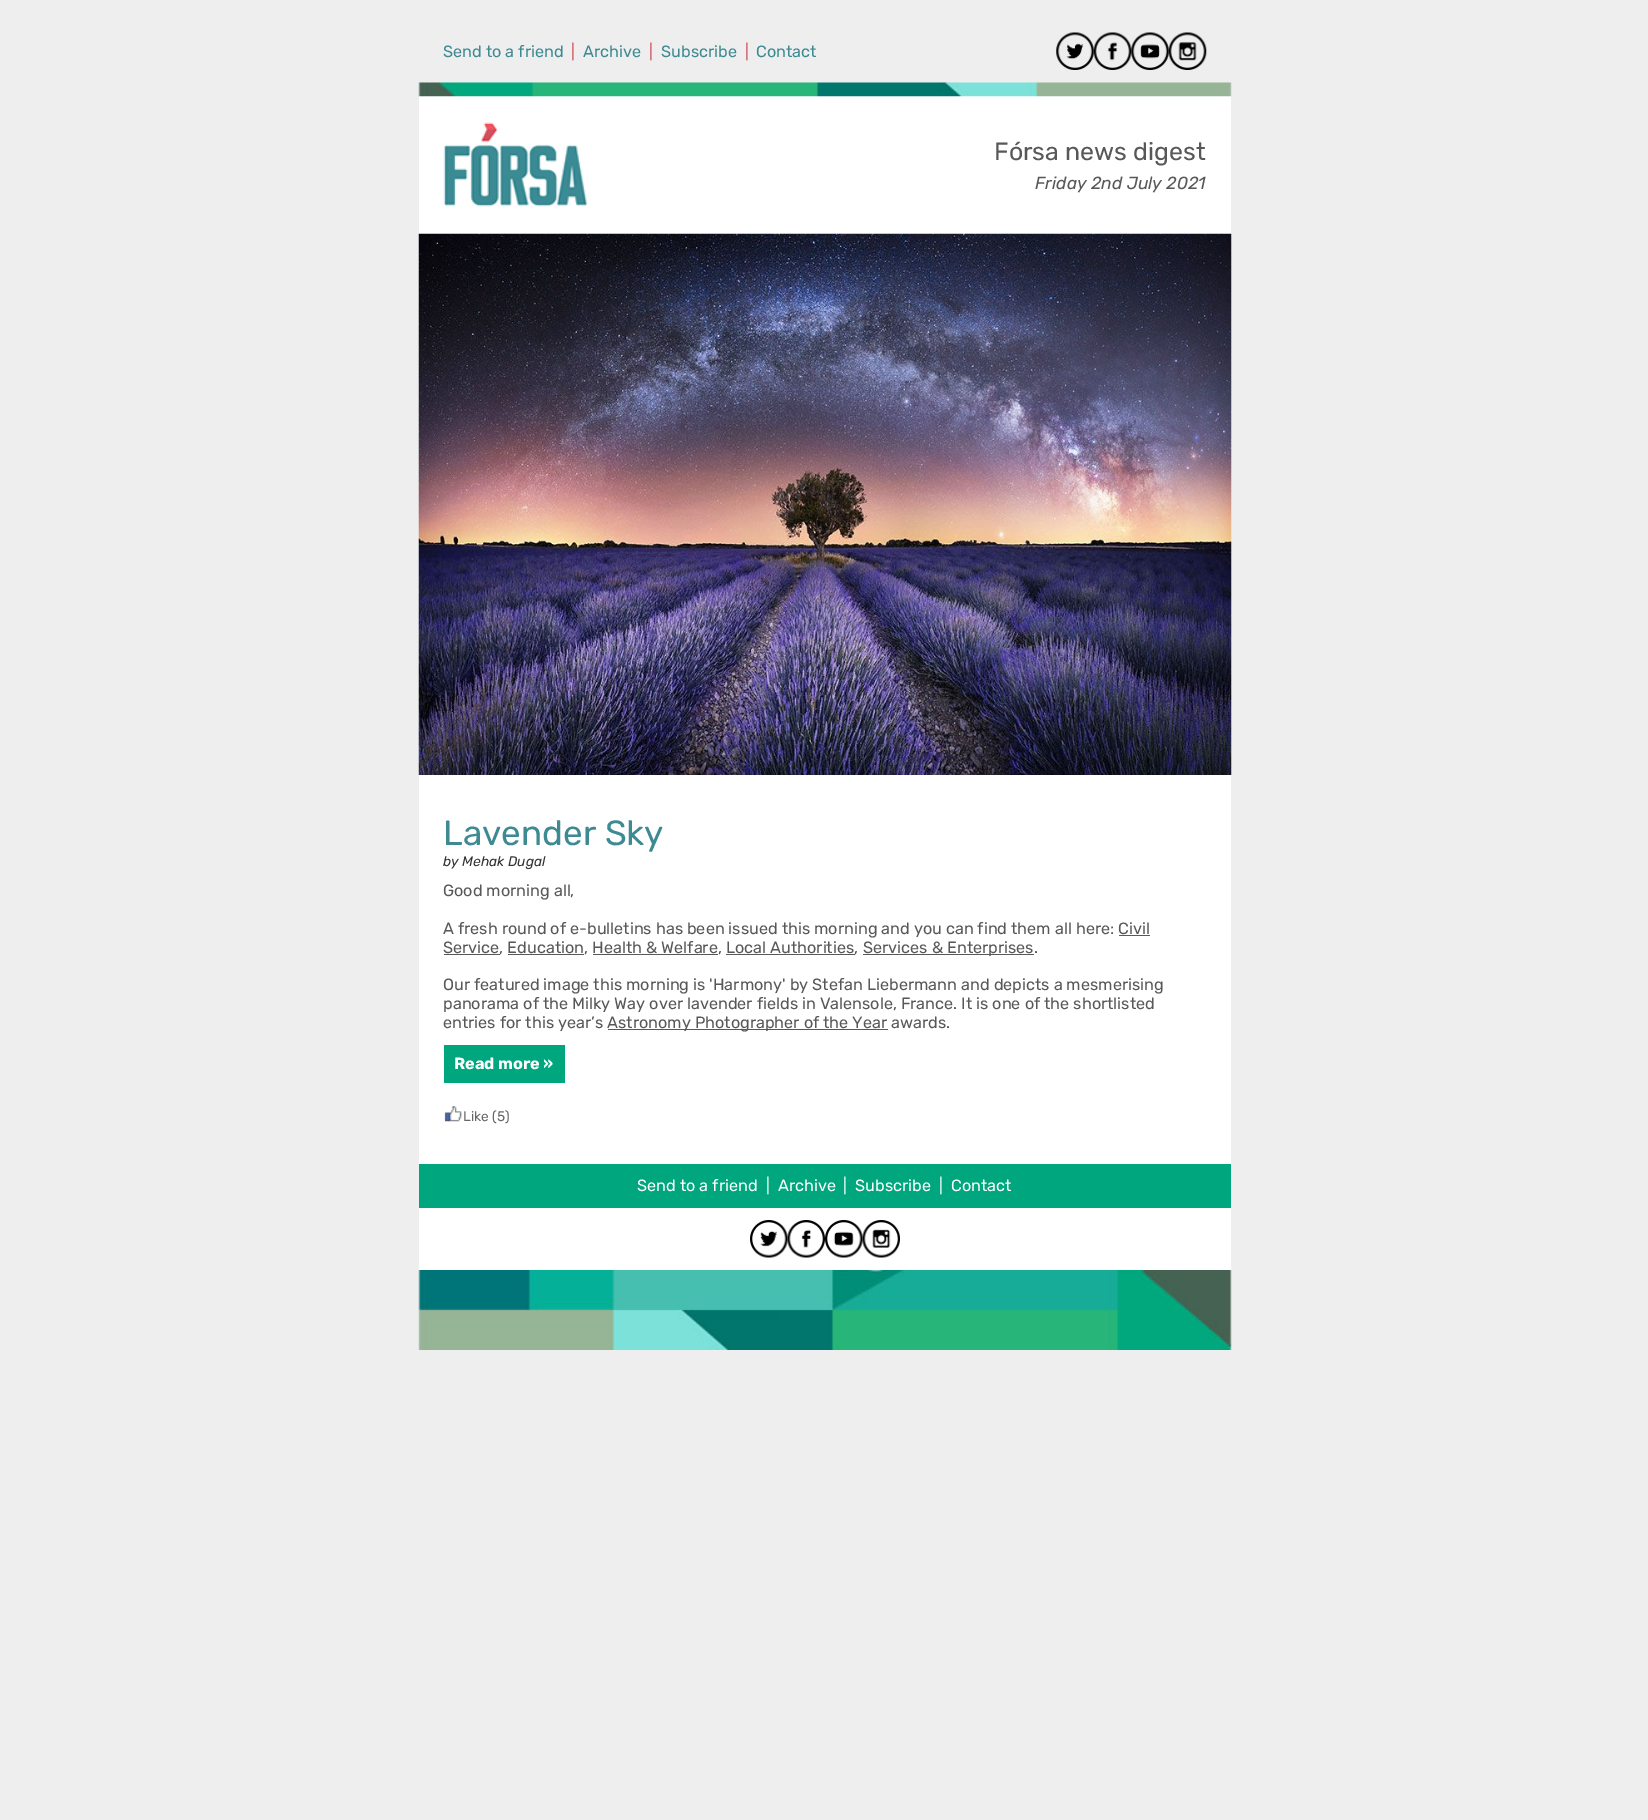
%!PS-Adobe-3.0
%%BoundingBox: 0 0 1648 1820
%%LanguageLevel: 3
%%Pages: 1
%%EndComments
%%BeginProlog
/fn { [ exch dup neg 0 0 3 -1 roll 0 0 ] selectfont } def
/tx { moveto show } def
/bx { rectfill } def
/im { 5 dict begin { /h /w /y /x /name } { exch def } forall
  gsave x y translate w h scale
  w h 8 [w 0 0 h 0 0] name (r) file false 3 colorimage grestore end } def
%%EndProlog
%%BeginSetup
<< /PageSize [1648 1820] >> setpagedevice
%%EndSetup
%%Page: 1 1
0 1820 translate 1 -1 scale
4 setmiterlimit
0.933 setgray
0 0 1648 1820 bx
1 setgray
419 96 812 1174 bx
/Rubik-Regular 16.25 fn
0.239 0.541 0.576 setrgbcolor
(Send to a friend) 443 57 tx
0.824 0.298 0.349 setrgbcolor
(|) 571 57 tx
0.239 0.541 0.576 setrgbcolor
(Archive) 583 57 tx
0.824 0.298 0.349 setrgbcolor
(|) 649 57 tx
0.239 0.541 0.576 setrgbcolor
(Subscribe) 661 57 tx
0.824 0.298 0.349 setrgbcolor
(|) 745 57 tx
0.239 0.541 0.576 setrgbcolor
(Contact) 756 57 tx
(image0.raw) 1056 32 38 38 im
(image1.raw) 1093 32 39 38 im
(image2.raw) 1131 32 38 38 im
(image3.raw) 1168 32 39 38 im
(image4.raw) 418 82 814 15 im
(image5.raw) 443 122 145 85 im
/Rubik-Regular 25 fn
0.345 0.345 0.349 setrgbcolor
(Fórsa news digest) 994 160 tx
/Rubik-Italic 17.5 fn
(Friday 2nd July 2021) 1035 189 tx
(image6.raw) 418 233 814 542 im
/Rubik-Regular 35 fn
0.239 0.541 0.576 setrgbcolor
(Lavender Sky) 443 845 tx
/Rubik-Italic 13.75 fn
0.2 setgray
(by Mehak Dugal) 443 866 tx
/Rubik-Regular 16.25 fn
0.345 0.345 0.349 setrgbcolor
(Good morning all,) 443 896 tx
(A fresh round of e-bulletins has been issued this morning and you can find them all here: Civil) 443 934 tx
0.345 0.345 0.353 setrgbcolor
444 954 56 1 bx
0.345 0.345 0.349 setrgbcolor
(Service, Education, Health & Welfare, Local Authorities,) 443 953 tx
0.345 0.345 0.353 setrgbcolor
1119 935 31 1 bx
863 954 171 1 bx
0.345 0.345 0.349 setrgbcolor
(Services & Enterprises.) 863 953 tx
0.345 0.345 0.353 setrgbcolor
508 954 76 1 bx
593 954 125 1 bx
726 954 129 1 bx
0.345 0.345 0.349 setrgbcolor
(Our featured image this morning is 'Harmony' by Stefan Liebermann and depicts a mesmerising) 443 990 tx
(panorama of the Milky Way over lavender fields in Valensole, France. It is one of the shortlisted) 443 1009 tx
(entries for this year’s) 443 1028 tx
0.345 0.345 0.353 setrgbcolor
608 1029 280 1 bx
0.345 0.345 0.349 setrgbcolor
(Astronomy Photographer of the Year awards.) 607 1028 tx
0 0.651 0.49 setrgbcolor
444 1045 121 38 bx
/Rubik-Bold 16.25 fn
1 setgray
(Read more ») 454 1069 tx
(image7.raw) 444 1106 18 16 im
/Rubik-Regular 13.75 fn
0.4 setgray
(Like \(5\)) 463 1121 tx
0 0.651 0.49 setrgbcolor
419 1164 812 44 bx
/Rubik-Regular 16.25 fn
1 setgray
(Send to a friend) 637 1191 tx
(|) 766 1191 tx
(Archive) 778 1191 tx
(|) 843 1191 tx
(Subscribe) 855 1191 tx
(|) 939 1191 tx
(Contact) 951 1191 tx
(image8.raw) 750 1220 38 38 im
(image9.raw) 787 1220 38 38 im
(image10.raw) 825 1220 38 38 im
(image11.raw) 862 1220 38 38 im
(image12.raw) 418 1270 814 80 im
showpage
%%EOF
